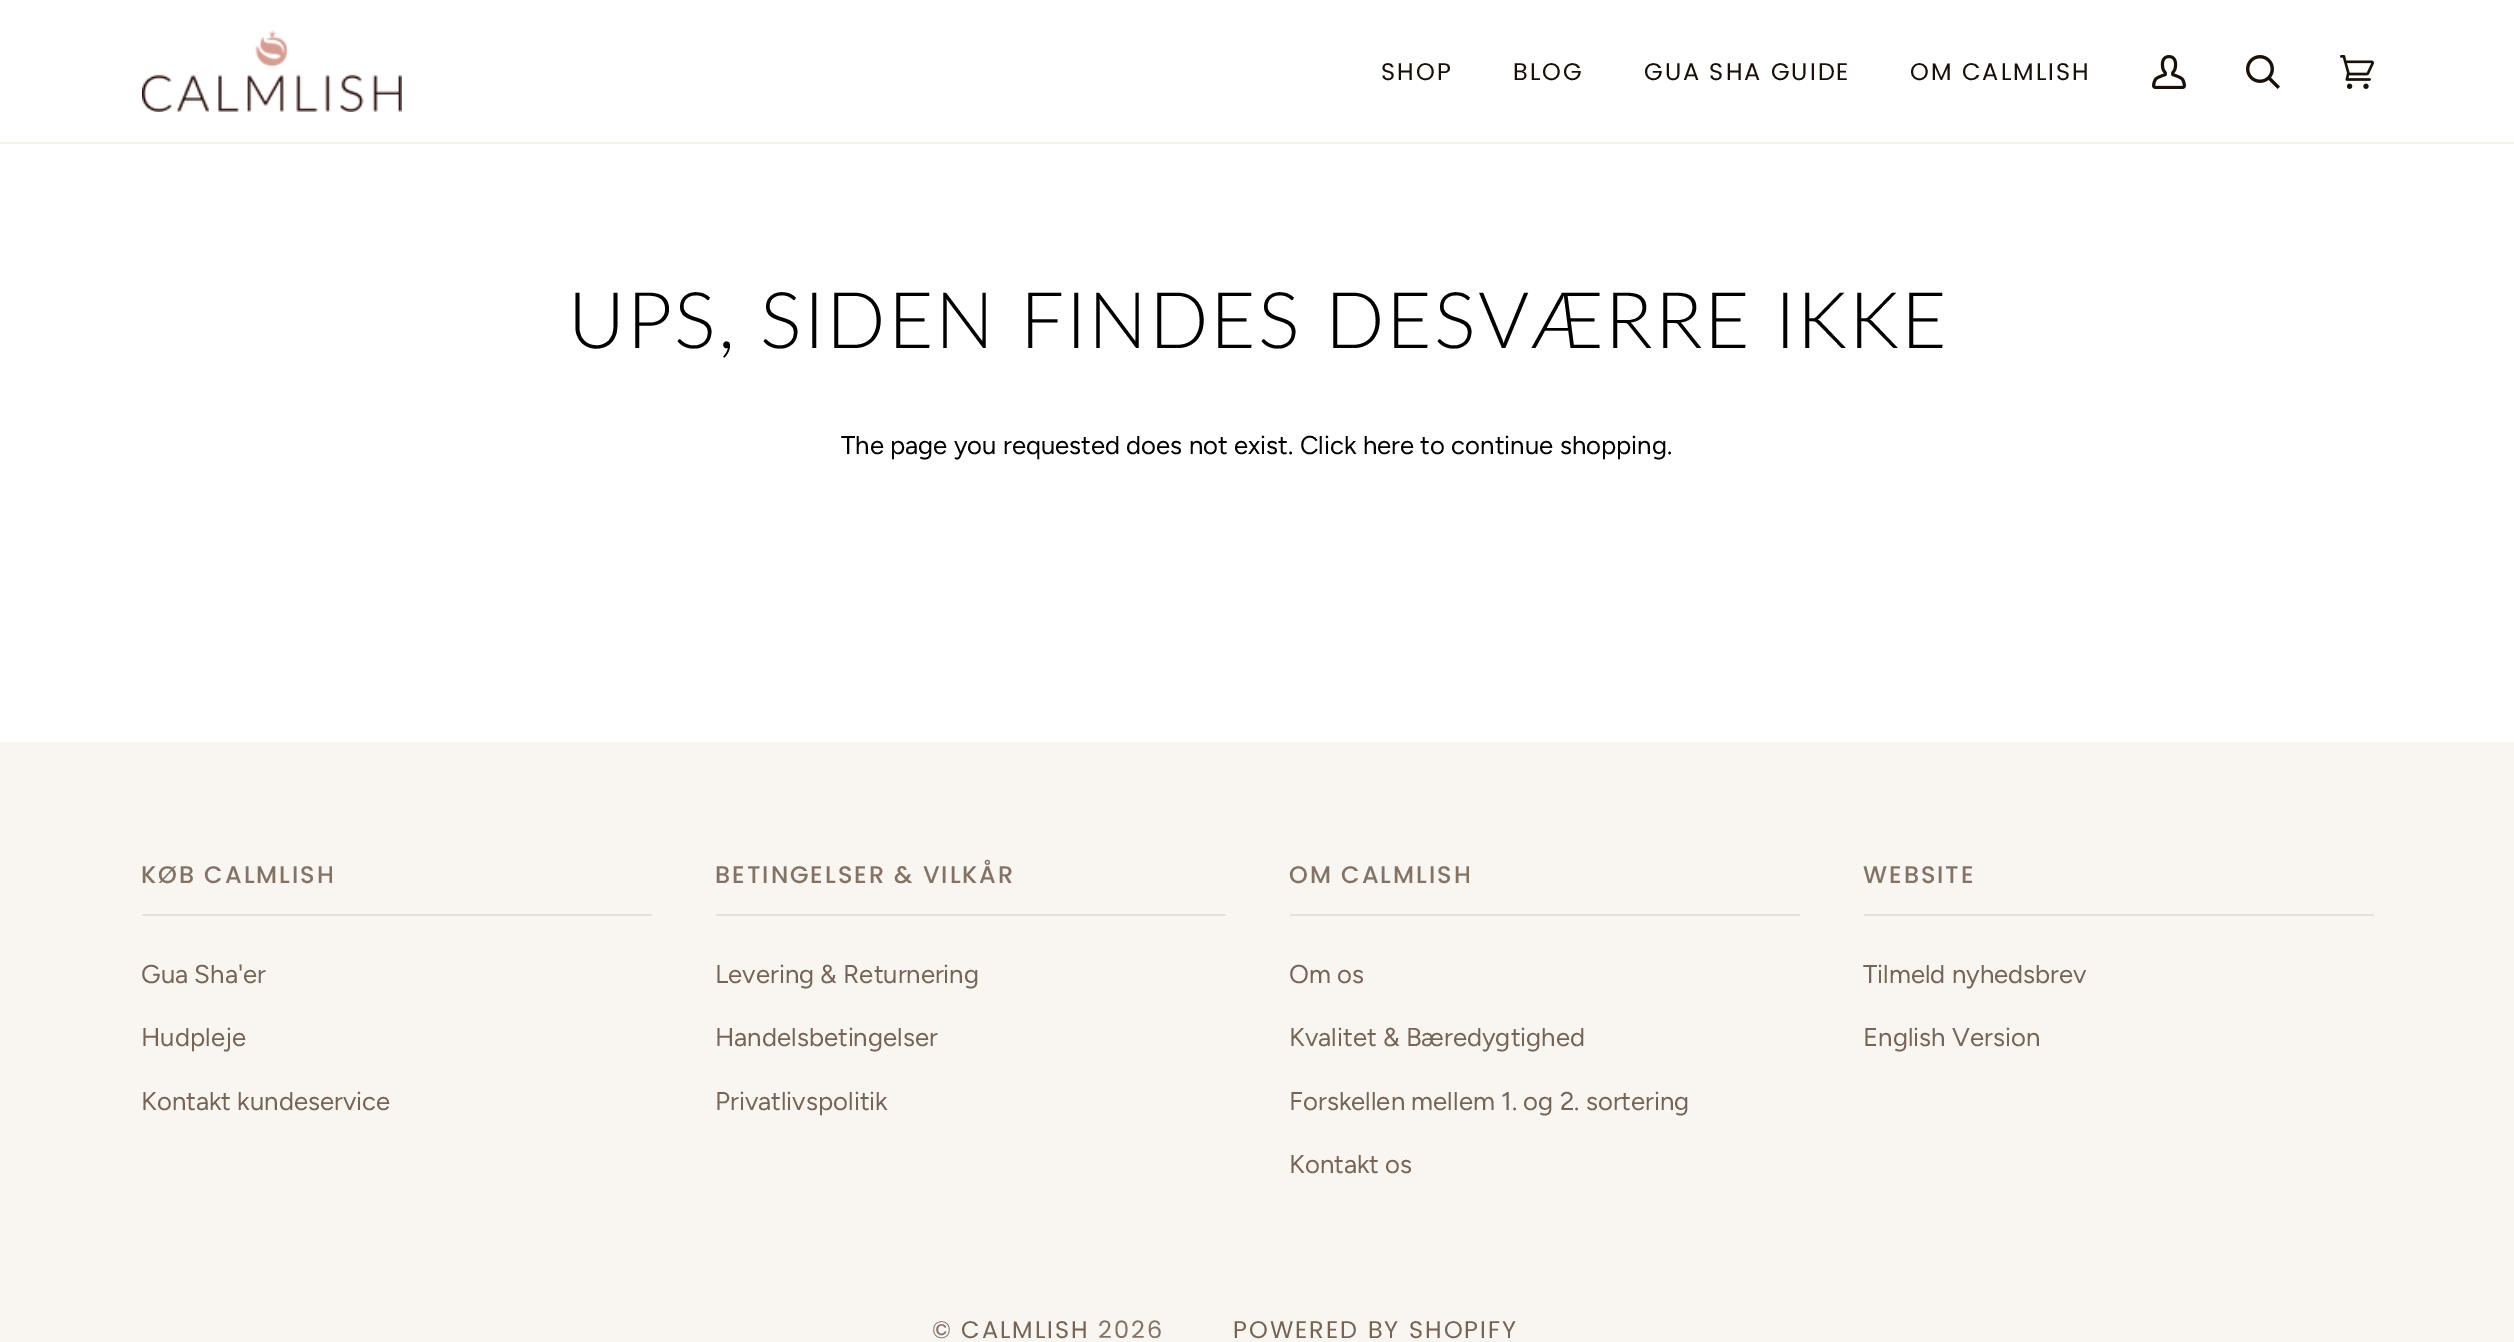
%!PS-Adobe-3.0
%%BoundingBox: 0 0 2514 1342
%%LanguageLevel: 3
%%Pages: 1
%%EndComments
%%BeginProlog
/m { moveto } bind def
/fn { [ exch dup neg 0 0 3 -1 roll 0 0 ] selectfont } def
/tx { moveto show } def
/bx { rectfill } def
/im { 5 dict begin { /h /w /y /x /name } { exch def } forall
  gsave x y translate w h scale
  w h 8 [w 0 0 h 0 0] name (r) file false 3 colorimage grestore end } def
%%EndProlog
%%BeginSetup
<< /PageSize [2514 1342] >> setpagedevice
%%EndSetup
%%Page: 1 1
0 1342 translate 1 -1 scale
4 setmiterlimit
1 setgray
0 0 2514 1342 bx
0.973 0.941 0.906 setrgbcolor
0 142 2514 2 bx
(image0.raw) 142 30 260 82 im
/Poppins-Regular 24 fn
0.098 0.063 0.031 setrgbcolor
1381 80 m 2 0 (SHOP) ashow
1513 80 m 2 0 (BLOG) ashow
1644 80 m 2 0 (GUA SHA GUIDE) ashow
1910 80 m 2 0 (OM CALMLISH) ashow
(image1.raw) 2152 55 34 34 im
(image2.raw) 2246 55 34 34 im
(image3.raw) 2340 55 34 34 im
/Lato-Light 78.2 fn
0 setgray
568 348 m 2 0 (UPS, SIDEN FINDES DESVÆRRE IKKE) ashow
/Figtree-Regular 25.75 fn
(The page you requested does not exist. Click here to continue shopping.) 841 454 tx
0.976 0.965 0.949 setrgbcolor
0 742 2514 600 bx
0.898 0.878 0.859 setrgbcolor
142 914 510 2 bx
/Poppins-Medium 24 fn
0.514 0.451 0.4 setrgbcolor
141 883 m 2 0 (KØB CALMLISH) ashow
/Figtree-Regular 25.75 fn
0.463 0.392 0.337 setrgbcolor
(Gua Sha'er) 141 983 tx
(Hudpleje) 141 1046 tx
(Kontakt kundeservice) 141 1110 tx
0.898 0.878 0.859 setrgbcolor
716 914 510 2 bx
/Poppins-Medium 24 fn
0.514 0.451 0.4 setrgbcolor
715 883 m 2 0 (BETINGELSER & VILKÅR) ashow
/Figtree-Regular 25.75 fn
0.463 0.392 0.337 setrgbcolor
(Levering & Returnering) 715 983 tx
(Handelsbetingelser) 715 1046 tx
(Privatlivspolitik) 715 1110 tx
0.898 0.878 0.859 setrgbcolor
1290 914 510 2 bx
/Poppins-Medium 24 fn
0.514 0.451 0.4 setrgbcolor
1289 883 m 2 0 (OM CALMLISH) ashow
/Figtree-Regular 25.75 fn
0.463 0.392 0.337 setrgbcolor
(Om os) 1289 983 tx
(Kvalitet & Bæredygtighed) 1289 1046 tx
(Forskellen mellem 1. og 2. sortering) 1289 1110 tx
(Kontakt os) 1289 1173 tx
0.898 0.878 0.859 setrgbcolor
1864 914 510 2 bx
/Poppins-Medium 24 fn
0.514 0.451 0.4 setrgbcolor
1863 883 m 2 0 (WEBSITE) ashow
/Figtree-Regular 25.75 fn
0.463 0.392 0.337 setrgbcolor
(Tilmeld nyhedsbrev) 1863 983 tx
(English Version) 1863 1046 tx
/Poppins-Regular 24 fn
0.514 0.451 0.4 setrgbcolor
932 1338 m 2 0 (©) ashow
0.463 0.392 0.337 setrgbcolor
961 1338 m 2 0 (CALMLISH) ashow
0.514 0.451 0.4 setrgbcolor
1098 1338 m 2 0 (2026) ashow
0.463 0.392 0.337 setrgbcolor
1233 1338 m 2 0 (POWERED BY SHOPIFY) ashow
showpage
%%EOF
